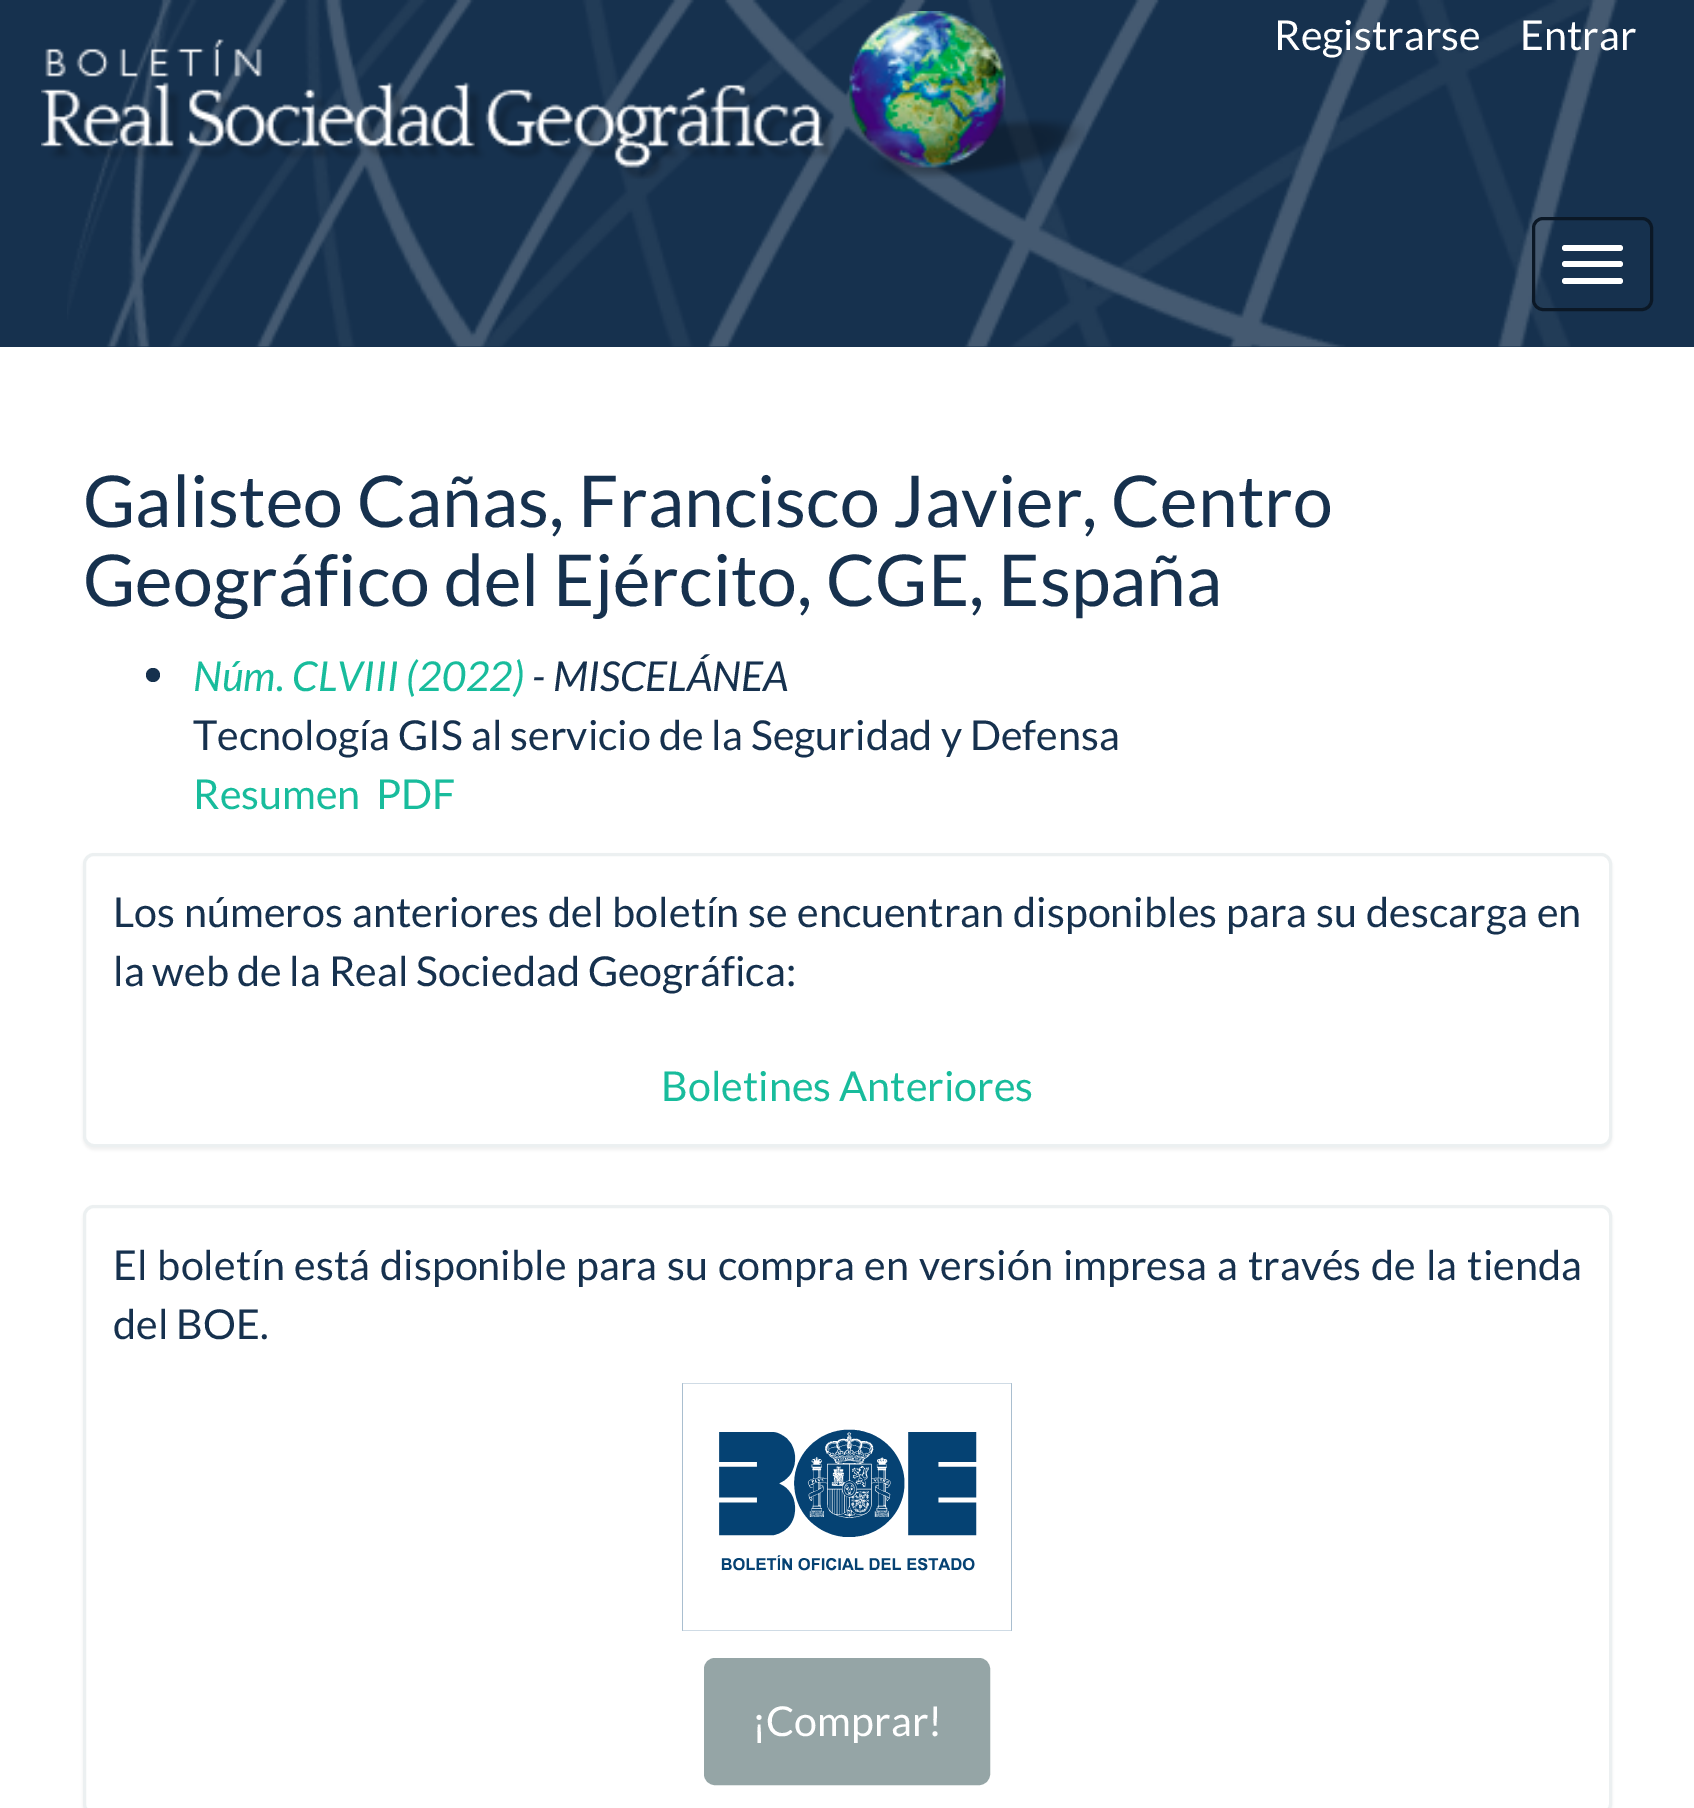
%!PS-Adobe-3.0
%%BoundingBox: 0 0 1694 1808
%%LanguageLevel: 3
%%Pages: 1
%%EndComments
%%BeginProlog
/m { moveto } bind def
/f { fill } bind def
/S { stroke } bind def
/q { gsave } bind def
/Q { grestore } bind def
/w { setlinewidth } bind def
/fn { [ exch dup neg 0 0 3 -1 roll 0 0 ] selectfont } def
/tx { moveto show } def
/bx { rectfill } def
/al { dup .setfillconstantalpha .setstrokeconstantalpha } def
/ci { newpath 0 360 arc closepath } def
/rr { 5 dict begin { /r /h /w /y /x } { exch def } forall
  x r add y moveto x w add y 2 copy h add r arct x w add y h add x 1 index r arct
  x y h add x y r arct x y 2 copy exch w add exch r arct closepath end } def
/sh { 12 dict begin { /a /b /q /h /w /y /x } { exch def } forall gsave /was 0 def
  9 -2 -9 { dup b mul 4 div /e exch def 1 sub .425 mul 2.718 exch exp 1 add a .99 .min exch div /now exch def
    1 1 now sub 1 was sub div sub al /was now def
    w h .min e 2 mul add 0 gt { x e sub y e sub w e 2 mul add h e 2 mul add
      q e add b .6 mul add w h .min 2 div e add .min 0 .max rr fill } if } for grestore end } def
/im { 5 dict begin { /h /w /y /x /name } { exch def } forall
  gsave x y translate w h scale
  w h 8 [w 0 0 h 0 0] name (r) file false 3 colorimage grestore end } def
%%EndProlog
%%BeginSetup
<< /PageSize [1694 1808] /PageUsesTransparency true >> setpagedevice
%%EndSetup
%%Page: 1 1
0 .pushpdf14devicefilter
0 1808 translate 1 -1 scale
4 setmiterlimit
1 setgray
0 0 1694 1808 bx
0.086 0.192 0.306 setrgbcolor
0 0 1694 347 bx
(image0.raw) 67 0 1551 347 im
(image1.raw) 41 11 1044 168 im
/Lato-Regular 41.25 fn
1 setgray
(Registrarse) 1274 50 tx
(Entrar) 1520 50 tx
0.043 0.094 0.149 setrgbcolor
3 w
1533.5 218.5 118 91 9.5 rr S
1 setgray
1562 245 61 6 3 rr f
1562 261 61 6 3 rr f
1562 278 61 6 3 rr f
/Lato-Regular 71.5 fn
0.086 0.192 0.306 setrgbcolor
(Galisteo Cañas, Francisco Javier, Centro) 83 527 tx
(Geográfico del Ejército, CGE, España) 83 606 tx
153 675 7 ci f
/Lato-Italic 41.25 fn
0.094 0.737 0.612 setrgbcolor
(Núm. CLVIII \(2022\)) 193 691 tx
0.086 0.192 0.306 setrgbcolor
(- MISCELÁNEA) 532 691 tx
/Lato-Regular 41.25 fn
(Tecnología GIS al servicio de la Seguridad y Defensa) 193 750 tx
0.094 0.737 0.612 setrgbcolor
(Resumen) 193 809 tx
(PDF) 376 809 tx
0 setgray
83 855 1529 295 11 1.5 0.05 sh
1 setgray
84.5 854.5 1526 291 9.5 rr q f Q
0.925 0.941 0.945 setrgbcolor
S
0.086 0.192 0.306 setrgbcolor
113 927 m 1.1 0 32 (Los números anteriores del boletín se encuentran disponibles para su descarga en) widthshow
(la web de la Real Sociedad Geográfica:) 113 986 tx
0.094 0.737 0.612 setrgbcolor
(Boletines Anteriores) 661 1101 tx
0 setgray
83 1207 1529 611 11 1.5 0.05 sh
1 setgray
84.5 1206.5 1526 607 9.5 rr q f Q
0.925 0.941 0.945 setrgbcolor
S
0.086 0.192 0.306 setrgbcolor
113 1280 m 2 0 32 (El boletín está disponible para su compra en versión impresa a través de la tienda) widthshow
(del BOE.) 113 1339 tx
(image2.raw) 682 1383 330 248 im
0.584 0.647 0.651 setrgbcolor
707 1661 280 121 8 rr q f Q
6 w
S
1 setgray
(¡Comprar!) 752 1736 tx
.poppdf14devicefilter showpage
%%EOF
